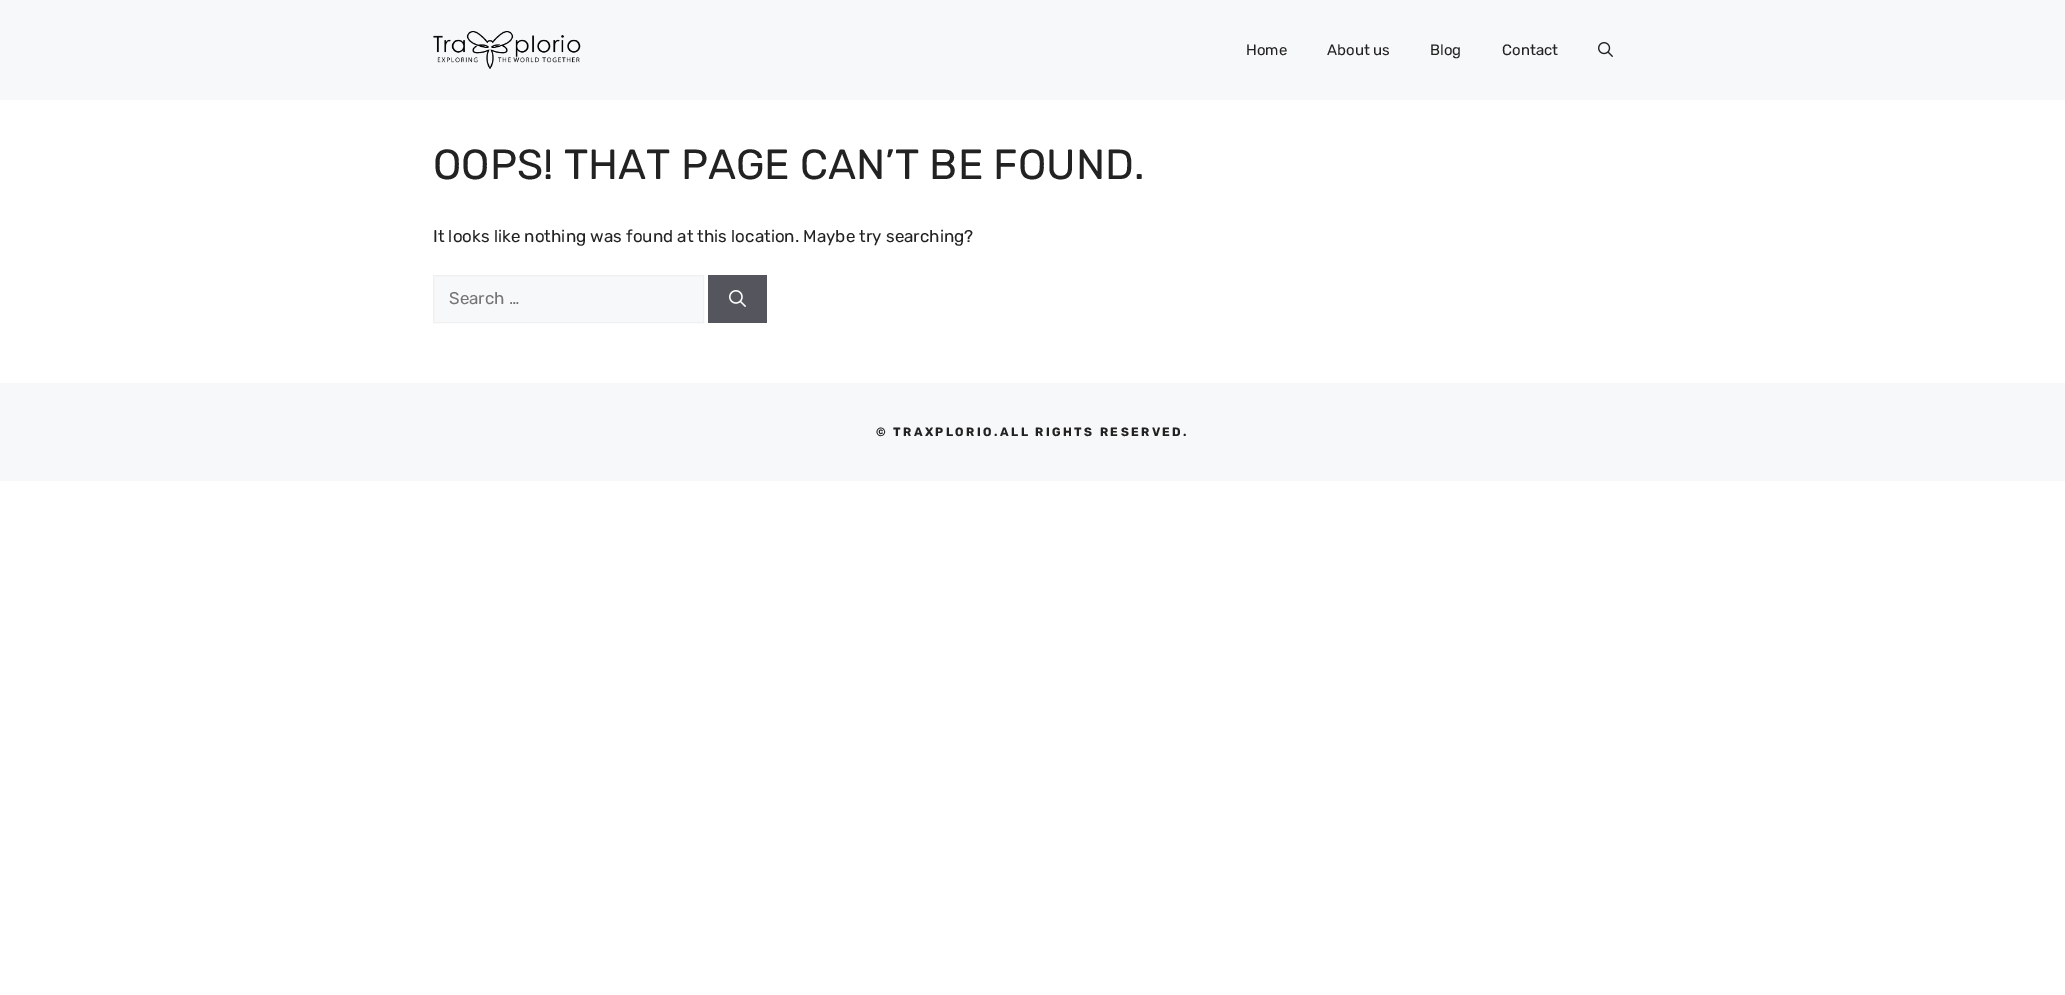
%!PS-Adobe-3.0
%%BoundingBox: 0 0 2065 995
%%LanguageLevel: 3
%%Pages: 1
%%EndComments
%%BeginProlog
/m { moveto } bind def
/l { lineto } bind def
/h { closepath } bind def
/f { fill } bind def
/S { stroke } bind def
/q { gsave } bind def
/Q { grestore } bind def
/fn { [ exch dup neg 0 0 3 -1 roll 0 0 ] selectfont } def
/tx { moveto show } def
/bx { rectfill } def
/im { 5 dict begin { /h /w /y /x /name } { exch def } forall
  gsave x y translate w h scale
  w h 8 [w 0 0 h 0 0] name (r) file false 3 colorimage grestore end } def
%%EndProlog
%%BeginSetup
<< /PageSize [2065 995] >> setpagedevice
%%EndSetup
%%Page: 1 1
0 995 translate 1 -1 scale
4 setmiterlimit
1 setgray
0 0 2065 995 bx
0.969 0.973 0.976 setrgbcolor
0 0 2065 100 bx
(image0.raw) 433 31 148 38 im
/Rubik-Regular 15 fn
0.133 setgray
(Home) 1246 55 tx
(About us) 1327 55 tx
(Blog) 1430 55 tx
(Contact) 1502 55 tx
(image1.raw) 1598 42 15 15 im
/Rubik-Regular 42 fn
(OOPS! THAT PAGE CAN’T BE FOUND.) 433 179 tx
/Rubik-Regular 17 fn
(It looks like nothing was found at this location. Maybe try searching?) 433 242 tx
0.969 0.973 0.976 setrgbcolor
433.5 275.5 m 703.5 275.5 l 703.5 322.5 l 433.5 322.5 l h q f Q
0.941 setgray
S
0.459 setgray
(Search …) 449 304 tx
0.333 0.333 0.369 setrgbcolor
708 275 59 48 bx
(image2.raw) 729 290 17 17 im
0.969 0.973 0.976 setrgbcolor
0 383 2065 98 bx
/Rubik-Bold 12 fn
0.133 setgray
876 436 m 2.4 0 (© TRAXPLORIO.ALL RIGHTS RESERVED.) ashow
showpage
%%EOF
